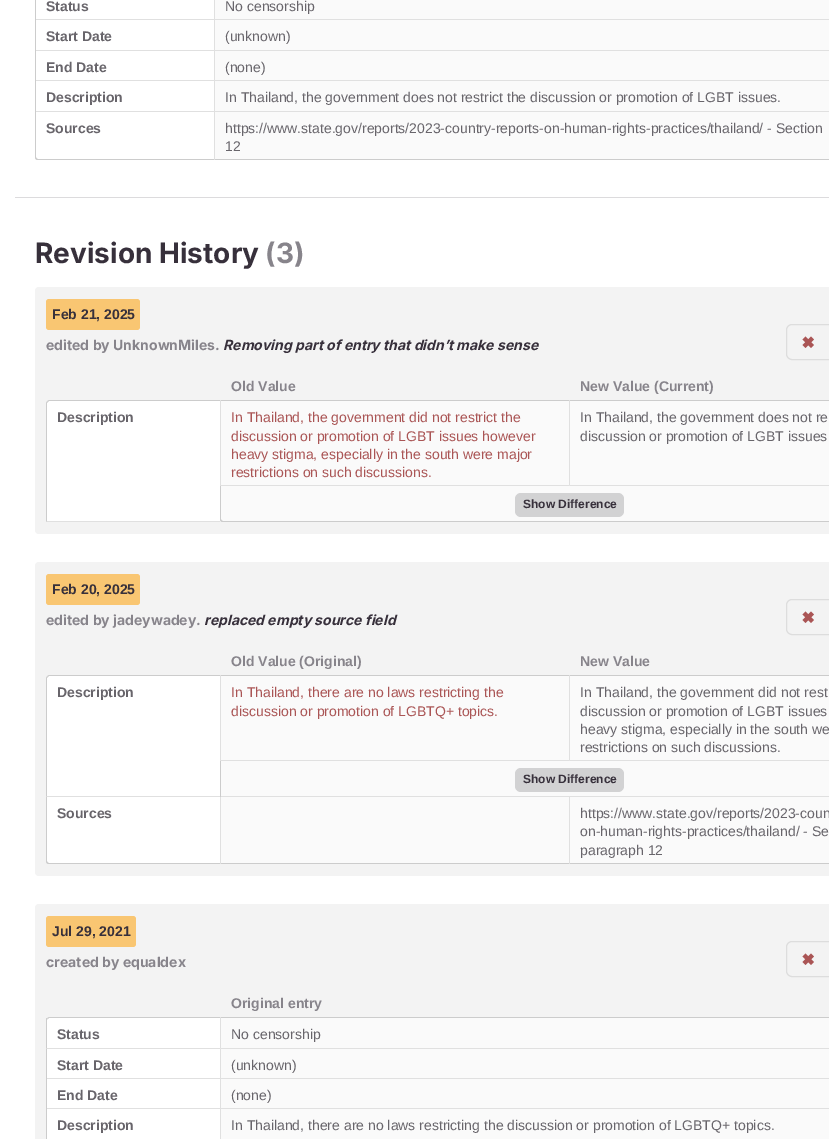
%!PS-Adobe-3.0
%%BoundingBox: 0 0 829 1139
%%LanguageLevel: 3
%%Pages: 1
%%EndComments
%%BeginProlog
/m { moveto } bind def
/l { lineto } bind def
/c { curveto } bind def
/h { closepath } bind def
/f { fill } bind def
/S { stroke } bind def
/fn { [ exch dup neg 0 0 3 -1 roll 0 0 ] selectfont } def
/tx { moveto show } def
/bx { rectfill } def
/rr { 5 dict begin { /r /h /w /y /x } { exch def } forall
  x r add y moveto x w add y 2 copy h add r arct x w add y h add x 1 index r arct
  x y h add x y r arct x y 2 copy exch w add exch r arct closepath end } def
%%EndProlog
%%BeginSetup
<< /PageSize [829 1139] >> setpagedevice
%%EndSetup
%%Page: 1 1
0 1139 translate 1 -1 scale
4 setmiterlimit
1 setgray
0 0 829 1139 bx
0.878 setgray
35 19 794 1 bx
0.8 setgray
35 0 1 20 bx
/LiberationSans-Bold 14 fn
0.408 0.396 0.42 setrgbcolor
(Status) 46 11 tx
0.98 setgray
215 0 614 19 bx
0.878 setgray
214 0 1 20 bx
/LiberationSans-Regular 14 fn
0.408 0.396 0.42 setrgbcolor
(No censorship) 225 11 tx
0.878 setgray
35 50 794 1 bx
0.8 setgray
35 20 1 31 bx
/LiberationSans-Bold 14 fn
0.408 0.396 0.42 setrgbcolor
(Start Date) 46 41 tx
0.98 setgray
215 20 614 30 bx
0.878 setgray
214 20 1 31 bx
/LiberationSans-Regular 14 fn
0.408 0.396 0.42 setrgbcolor
(\(unknown\)) 225 41 tx
0.878 setgray
35 80 794 1 bx
0.8 setgray
35 51 1 30 bx
/LiberationSans-Bold 14 fn
0.408 0.396 0.42 setrgbcolor
(End Date) 46 72 tx
0.98 setgray
215 51 614 29 bx
0.878 setgray
214 51 1 30 bx
/LiberationSans-Regular 14 fn
0.408 0.396 0.42 setrgbcolor
(\(none\)) 225 72 tx
0.878 setgray
35 111 794 1 bx
0.8 setgray
35 81 1 31 bx
/LiberationSans-Bold 14 fn
0.408 0.396 0.42 setrgbcolor
(Description) 46 102 tx
0.98 setgray
215 81 614 30 bx
0.878 setgray
214 81 1 31 bx
/LiberationSans-Regular 14 fn
0.408 0.396 0.42 setrgbcolor
(In Thailand, the government does not restrict the discussion or promotion of LGBT issues.) 225 102 tx
0.8 setgray
35 112 m 214 112 l 214 160 l 38 160 l 36 160 35 159 35 157 c h 36 112 m 214 112 l 214 159 l 38 159 l 37 159 36 158 36 157 c h eofill
/LiberationSans-Bold 14 fn
0.408 0.396 0.42 setrgbcolor
(Sources) 46 133 tx
0.98 setgray
214 112 615 48 bx
0.8 setgray
215 159 m 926 159 l 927 158 l 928 159 l 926 160 l 214 160 l h f
0.878 setgray
214 112 m 215 112 l 215 159 l 214 160 l h f
/LiberationSans-Regular 14 fn
0.408 0.396 0.42 setrgbcolor
(https://www.state.gov/reports/2023-country-reports-on-human-rights-practices/thailand/ - Section) 225 133 tx
(12) 225 151 tx
0.863 0.859 0.867 setrgbcolor
15 197 814 1 bx
/Inter-Bold 28 fn
0.216 0.188 0.231 setrgbcolor
(Revision History) 35 263 tx
0.529 0.518 0.545 setrgbcolor
(\(3\)) 265 263 tx
0.953 setgray
35 287 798 247 4 rr f
0.976 0.776 0.447 setrgbcolor
46 299 94 31 3 rr f
/LiberationSans-Bold 14 fn
0.216 0.188 0.231 setrgbcolor
(Feb 21, 2025) 52 319 tx
/Inter-Bold 14 fn
0.529 0.518 0.545 setrgbcolor
(edited by UnknownMiles.) 46 350 tx
/Inter-BoldItalic 14 fn
0.216 0.188 0.231 setrgbcolor
(Removing part of entry that didn’t make sense) 223 350 tx
0.867 setgray
792 324.5 m 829.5 324.5 l 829.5 359.5 l 792 359.5 l 789 359.5 786.5 357 786.5 354 c 786.5 330 l 786.5 327 789 324.5 792 324.5 c h S
0.667 0.333 0.333 setrgbcolor
811 336.5 m 814 339.5 l 805.5 348 l 802.5 345 l h f
802.5 339.5 m 805.5 336.5 l 814 345 l 811 348 l h f
/LiberationSans-Bold 14 fn
0.529 0.518 0.545 setrgbcolor
(Old Value) 231 391 tx
(New Value \(Current\)) 580 391 tx
1 setgray
49 400 m 220 400 l 220 522 l 46 522 l 46 403 l 46 401.5 47.5 400 49 400 c h f
0.8 setgray
49 400 m 47 401 l 48 402 l 49 401 l 220 401 l 220 400 l h f
0.878 setgray
220 522 m 220 521 l 47 521 l 46 522 l h f
0.8 setgray
46 522 m 47 521 l 47 403 l 48 402 l 47 401 l 46 403 l h f
0.408 0.396 0.42 setrgbcolor
(Description) 57 422 tx
0.98 setgray
221 401 348 84 bx
0.8 setgray
220 400 349 1 bx
0.878 setgray
220 485 349 1 bx
220 400 1 86 bx
/LiberationSans-Regular 14 fn
0.667 0.333 0.333 setrgbcolor
(In Thailand, the government did not restrict the) 231 422 tx
(discussion or promotion of LGBT issues however) 231 441 tx
(heavy stigma, especially in the south were major) 231 459 tx
(restrictions on such discussions.) 231 477 tx
0.98 setgray
569 400 260 86 bx
0.8 setgray
569 400 m 570 401 l 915 401 l 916 402 l 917 401 l 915 400 l h f
0.878 setgray
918 486 m 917 485 l 570 485 l 569 486 l h f
569 400 m 569 486 l 570 485 l 570 401 l h f
0.408 0.396 0.42 setrgbcolor
(In Thailand, the government does not re) 580 422 tx
(discussion or promotion of LGBT issues) 580 441 tx
0.98 setgray
220 486 m 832 486 l 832 519 l 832 520.5 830.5 522 829 522 c 223 522 l 221.5 522 220 520.5 220 519 c h f
0.8 setgray
220 486 m 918 486 l 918 519 l 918 521 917 522 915 522 c 223 522 l 221 522 220 521 220 519 c h 221 486 m 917 486 l 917 519 l 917 520 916 521 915 521 c 223 521 l 222 521 221 520 221 519 c h eofill
0.824 0.824 0.827 setrgbcolor
515 493 109 24 6 rr f
/LiberationSans-Bold 12 fn
0.216 0.188 0.231 setrgbcolor
(Show Difference) 523 508 tx
0.953 setgray
35 562 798 314 4 rr f
0.976 0.776 0.447 setrgbcolor
46 574 94 31 3 rr f
/LiberationSans-Bold 14 fn
0.216 0.188 0.231 setrgbcolor
(Feb 20, 2025) 52 594 tx
/Inter-Bold 14 fn
0.529 0.518 0.545 setrgbcolor
(edited by jadeywadey.) 46 625 tx
/Inter-BoldItalic 14 fn
0.216 0.188 0.231 setrgbcolor
(replaced empty source field) 204 625 tx
0.867 setgray
792 599.5 m 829.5 599.5 l 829.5 634.5 l 792 634.5 l 789 634.5 786.5 632 786.5 629 c 786.5 605 l 786.5 602 789 599.5 792 599.5 c h S
0.667 0.333 0.333 setrgbcolor
811 611.5 m 814 614.5 l 805.5 623 l 802.5 620 l h f
802.5 614.5 m 805.5 611.5 l 814 620 l 811 623 l h f
/LiberationSans-Bold 14 fn
0.529 0.518 0.545 setrgbcolor
(Old Value \(Original\)) 231 666 tx
(New Value) 580 666 tx
1 setgray
49 675 m 220 675 l 220 797 l 46 797 l 46 678 l 46 676.5 47.5 675 49 675 c h f
0.8 setgray
49 675 m 47 676 l 48 677 l 49 676 l 220 676 l 220 675 l h f
0.878 setgray
220 797 m 220 796 l 47 796 l 46 797 l h f
0.8 setgray
46 797 m 47 796 l 47 678 l 48 677 l 47 676 l 46 678 l h f
0.408 0.396 0.42 setrgbcolor
(Description) 57 697 tx
0.98 setgray
221 676 348 84 bx
0.8 setgray
220 675 349 1 bx
0.878 setgray
220 760 349 1 bx
220 675 1 86 bx
/LiberationSans-Regular 14 fn
0.667 0.333 0.333 setrgbcolor
(In Thailand, there are no laws restricting the) 231 697 tx
(discussion or promotion of LGBTQ+ topics.) 231 716 tx
0.98 setgray
569 675 260 86 bx
0.8 setgray
569 675 m 570 676 l 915 676 l 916 677 l 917 676 l 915 675 l h f
0.878 setgray
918 761 m 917 760 l 570 760 l 569 761 l h f
569 675 m 569 761 l 570 760 l 570 676 l h f
0.408 0.396 0.42 setrgbcolor
(In Thailand, the government did not rest) 580 697 tx
(discussion or promotion of LGBT issues) 580 716 tx
(heavy stigma, especially in the south we) 580 734 tx
(restrictions on such discussions.) 580 752 tx
0.98 setgray
221 761 608 35 bx
0.878 setgray
220 796 609 1 bx
0.8 setgray
220 761 1 36 bx
0.824 0.824 0.827 setrgbcolor
515 768 109 24 6 rr f
/LiberationSans-Bold 12 fn
0.216 0.188 0.231 setrgbcolor
(Show Difference) 523 783 tx
1 setgray
46 797 m 220 797 l 220 864 l 49 864 l 47.5 864 46 862.5 46 861 c h f
0.8 setgray
46 797 m 220 797 l 220 864 l 49 864 l 47 864 46 863 46 861 c h 47 797 m 220 797 l 220 863 l 49 863 l 48 863 47 862 47 861 c h eofill
/LiberationSans-Bold 14 fn
0.408 0.396 0.42 setrgbcolor
(Sources) 57 818 tx
0.98 setgray
221 797 348 66 bx
0.8 setgray
220 863 349 1 bx
0.878 setgray
220 797 1 67 bx
0.98 setgray
569 797 260 67 bx
0.8 setgray
570 863 m 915 863 l 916 862 l 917 863 l 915 864 l 569 864 l h f
0.878 setgray
569 797 m 570 797 l 570 863 l 569 864 l h f
/LiberationSans-Regular 14 fn
0.408 0.396 0.42 setrgbcolor
(https://www.state.gov/reports/2023-coun) 580 818 tx
(on-human-rights-practices/thailand/ - Se) 580 836 tx
(paragraph 12) 580 855 tx
0.953 setgray
35 904 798 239 4 rr f
0.976 0.776 0.447 setrgbcolor
46 916 90 31 3 rr f
/LiberationSans-Bold 14 fn
0.216 0.188 0.231 setrgbcolor
(Jul 29, 2021) 52 936 tx
/Inter-Bold 14 fn
0.529 0.518 0.545 setrgbcolor
(created by equaldex) 46 967 tx
0.867 setgray
792 941.5 m 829.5 941.5 l 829.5 976.5 l 792 976.5 l 789 976.5 786.5 974 786.5 971 c 786.5 947 l 786.5 944 789 941.5 792 941.5 c h S
0.667 0.333 0.333 setrgbcolor
811 953.5 m 814 956.5 l 805.5 965 l 802.5 962 l h f
802.5 956.5 m 805.5 953.5 l 814 962 l 811 965 l h f
/LiberationSans-Bold 14 fn
0.529 0.518 0.545 setrgbcolor
(Original entry) 231 1008 tx
1 setgray
49 1017 m 220 1017 l 220 1049 l 46 1049 l 46 1020 l 46 1018.5 47.5 1017 49 1017 c h f
0.8 setgray
49 1017 m 47 1018 l 48 1019 l 49 1018 l 220 1018 l 220 1017 l h f
0.878 setgray
220 1049 m 220 1048 l 47 1048 l 46 1049 l h f
0.8 setgray
46 1049 m 47 1048 l 47 1020 l 47.5 1018.5 l 47 1018 l 46 1018 46 1019 46 1020 c h f
0.408 0.396 0.42 setrgbcolor
(Status) 57 1039 tx
0.98 setgray
220 1017 609 32 bx
0.8 setgray
220 1017 m 221 1018 l 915 1018 l 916 1019 l 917 1018 l 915 1017 l h f
0.878 setgray
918 1049 m 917 1048 l 221 1048 l 220 1049 l h f
220 1017 m 220 1049 l 221 1048 l 221 1018 l h f
/LiberationSans-Regular 14 fn
0.408 0.396 0.42 setrgbcolor
(No censorship) 231 1039 tx
1 setgray
47 1049 173 29 bx
0.878 setgray
46 1078 783 1 bx
0.8 setgray
46 1049 1 30 bx
/LiberationSans-Bold 14 fn
0.408 0.396 0.42 setrgbcolor
(Start Date) 57 1070 tx
0.98 setgray
221 1049 608 29 bx
0.878 setgray
220 1049 1 30 bx
/LiberationSans-Regular 14 fn
0.408 0.396 0.42 setrgbcolor
(\(unknown\)) 231 1070 tx
1 setgray
47 1079 173 29 bx
0.878 setgray
46 1108 783 1 bx
0.8 setgray
46 1079 1 60 bx
/LiberationSans-Bold 14 fn
0.408 0.396 0.42 setrgbcolor
(End Date) 57 1100 tx
0.98 setgray
221 1079 608 29 bx
0.878 setgray
220 1079 1 60 bx
/LiberationSans-Regular 14 fn
0.408 0.396 0.42 setrgbcolor
(\(none\)) 231 1100 tx
1 setgray
47 1109 173 30 bx
/LiberationSans-Bold 14 fn
0.408 0.396 0.42 setrgbcolor
(Description) 57 1130 tx
0.98 setgray
221 1109 608 30 bx
/LiberationSans-Regular 14 fn
0.408 0.396 0.42 setrgbcolor
(In Thailand, there are no laws restricting the discussion or promotion of LGBTQ+ topics.) 231 1130 tx
showpage
%%EOF
